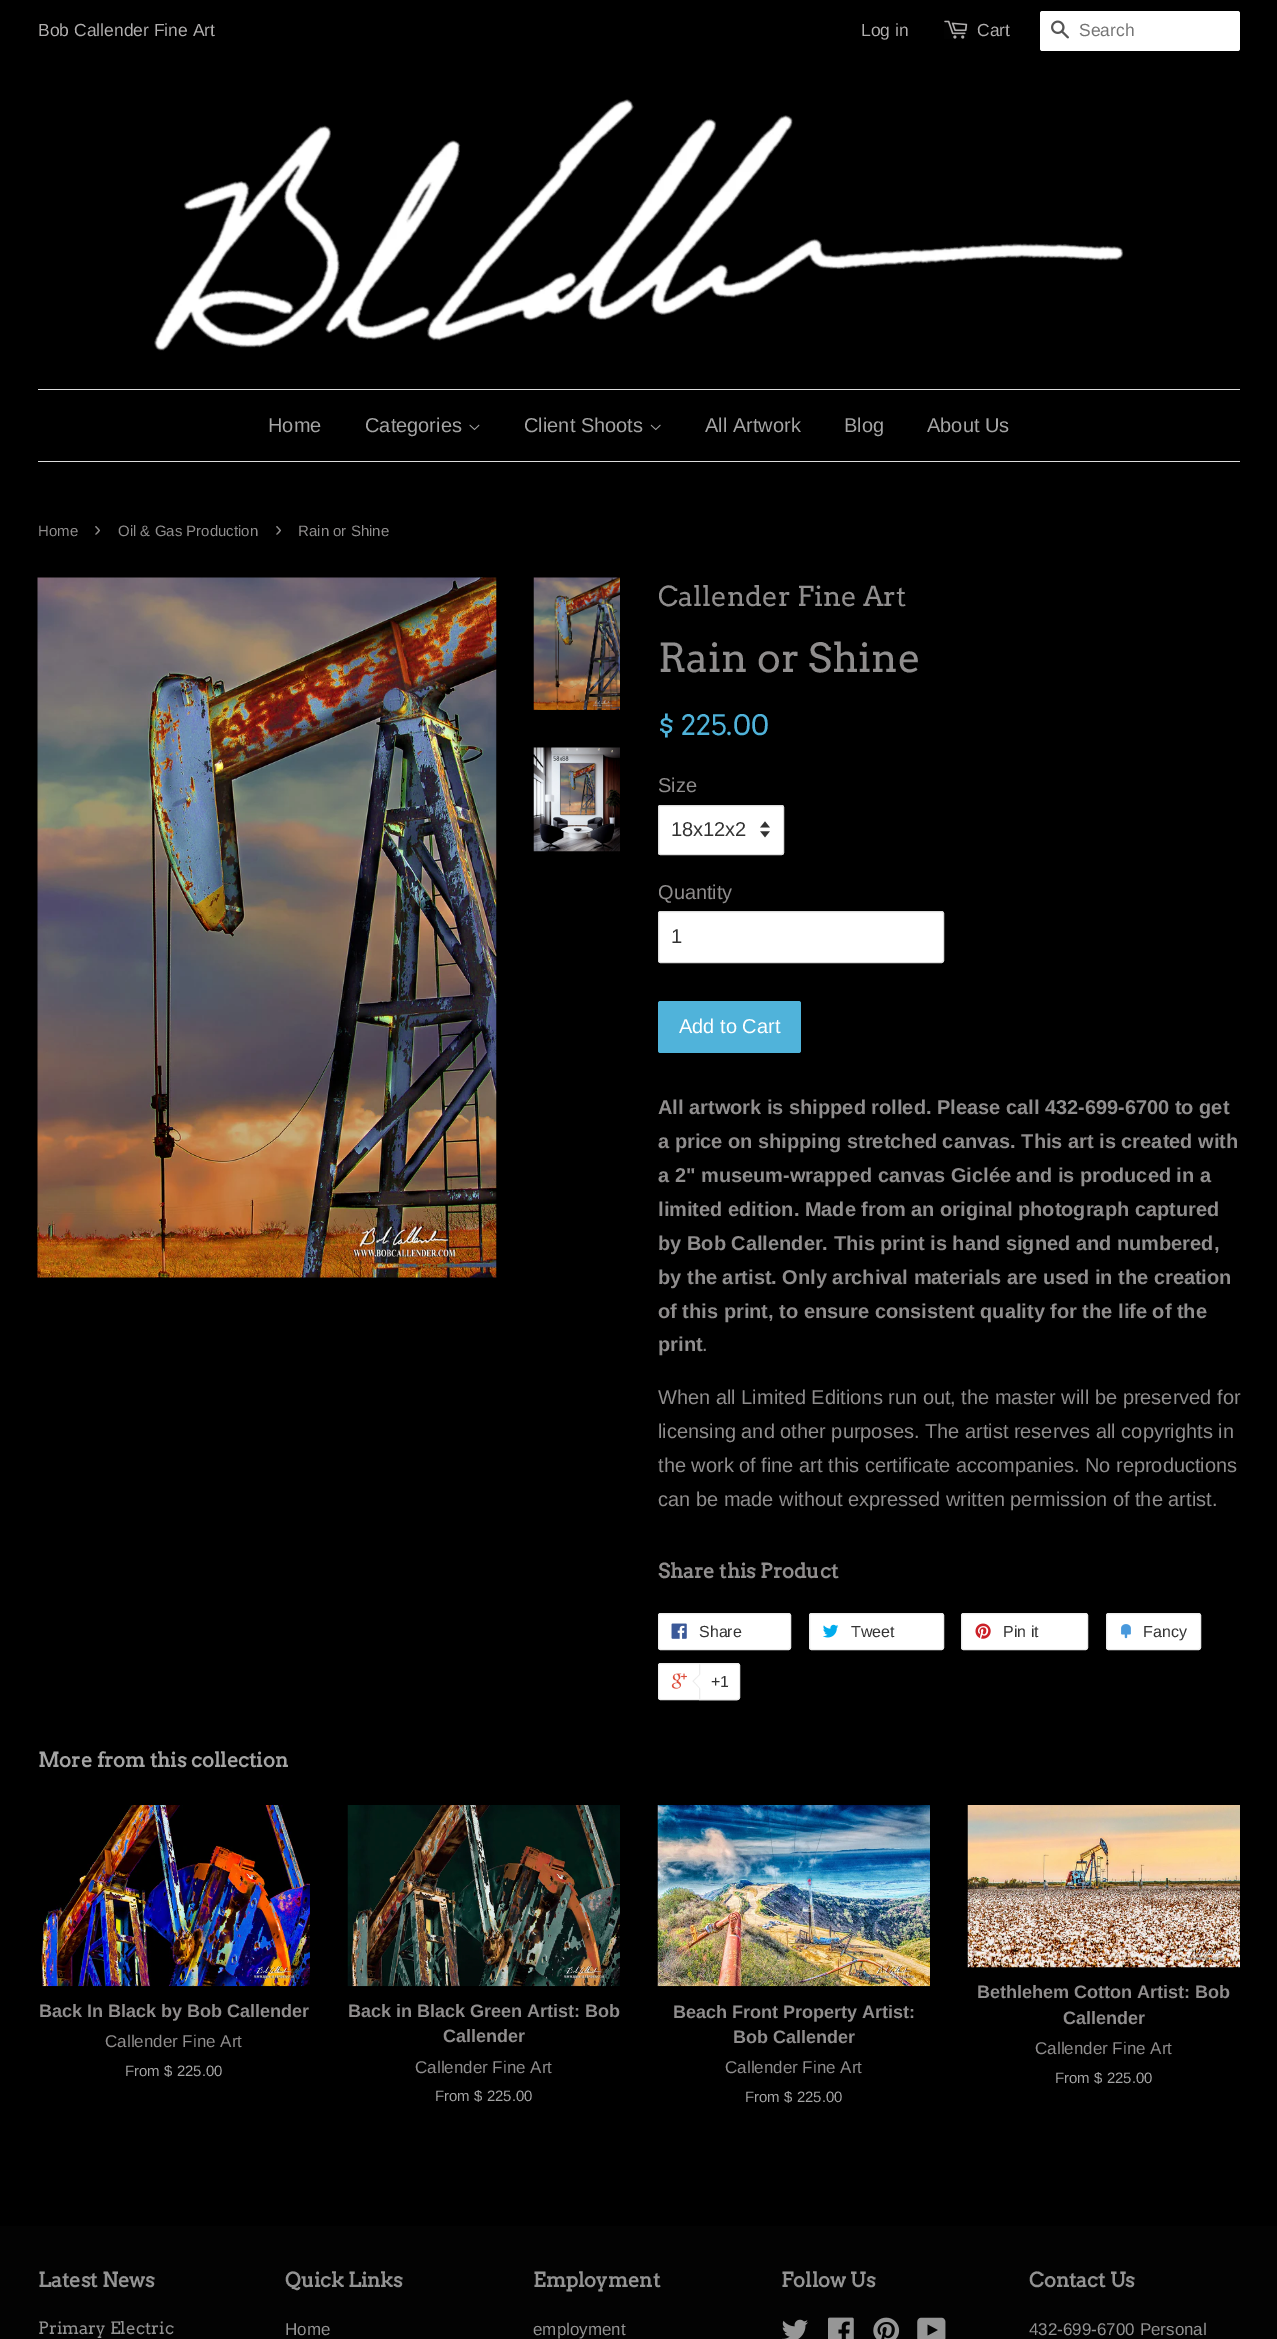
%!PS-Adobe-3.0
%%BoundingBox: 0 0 1277 2339
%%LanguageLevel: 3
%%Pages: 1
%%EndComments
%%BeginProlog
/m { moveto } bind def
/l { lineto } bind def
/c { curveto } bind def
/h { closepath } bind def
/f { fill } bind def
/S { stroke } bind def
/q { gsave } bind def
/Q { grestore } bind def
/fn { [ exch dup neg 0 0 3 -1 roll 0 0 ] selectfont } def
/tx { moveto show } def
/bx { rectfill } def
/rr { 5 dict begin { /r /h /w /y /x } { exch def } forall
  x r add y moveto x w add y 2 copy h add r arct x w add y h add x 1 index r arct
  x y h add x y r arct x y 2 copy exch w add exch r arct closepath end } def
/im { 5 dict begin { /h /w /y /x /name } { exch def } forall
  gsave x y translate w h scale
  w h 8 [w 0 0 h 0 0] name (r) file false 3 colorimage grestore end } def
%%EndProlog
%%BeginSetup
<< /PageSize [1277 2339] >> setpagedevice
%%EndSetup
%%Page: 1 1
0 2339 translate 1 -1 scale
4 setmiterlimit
0 setgray
0 0 1277 2339 bx
/LiberationSans-Regular 17.5 fn
0.69 0.682 0.682 setrgbcolor
(Bob Callender Fine Art) 38 36 tx
(Log in) 861 36 tx
(image0.raw) 944 20 24 19 im
(Cart) 977 36 tx
1 setgray
1040 11 200 40 2.5 rr f
(image1.raw) 1051 20 18 19 im
0.459 setgray
(Search) 1079 36 tx
(image2.raw) 154 99 970 252 im
0.867 setgray
38 389 1202 1 bx
38 461 1202 1 bx
/LiberationSans-Regular 20 fn
0.643 setgray
(Home) 268 432 tx
(Categories) 365 432 tx
(image3.raw) 469 424 11 7 im
(Client Shoots) 524 432 tx
(image4.raw) 650 424 11 7 im
(All Artwork) 705 432 tx
(Blog) 844 432 tx
(About Us) 927 432 tx
/LiberationSans-Regular 15 fn
0.561 0.553 0.553 setrgbcolor
(Home) 38 536 tx
/LiberationSans-Regular 21 fn
(›) 94 536 tx
/LiberationSans-Regular 15 fn
(Oil & Gas Production) 118 536 tx
/LiberationSans-Regular 21 fn
(›) 275 536 tx
/LiberationSans-Regular 15 fn
(Rain or Shine) 298 536 tx
(image5.raw) 37 577 460 701 im
(image6.raw) 533 577 87 133 im
(image7.raw) 533 747 87 105 im
/Arvo-Regular 27.5 fn
(Callender Fine Art) 658 606 tx
/Arvo-Regular 40 fn
(Rain or Shine) 658 672 tx
/Arvo-Regular 28 fn
0.314 0.702 0.855 setrgbcolor
($ 225.00) 658 735 tx
/LiberationSans-Regular 20 fn
0.561 0.553 0.553 setrgbcolor
(Size) 658 792 tx
1 setgray
658 805 126 50 2.5 rr f
(image8.raw) 760 821 10 17 im
0.867 setgray
658.5 805.5 125 49 2 rr S
0.2 setgray
(18x12x2) 671 836 tx
0.561 0.553 0.553 setrgbcolor
(Quantity) 658 899 tx
1 setgray
658.5 911.5 285 51 2 rr q f Q
0.867 setgray
S
0.2 setgray
(1) 671 943 tx
0.314 0.702 0.855 setrgbcolor
658 1001 143 52 2.5 rr f
1 setgray
(Add to Cart) 679 1033 tx
/LiberationSans-Bold 20 fn
0.561 0.553 0.553 setrgbcolor
(All artwork is shipped rolled. Please call 432-699-6700 to get) 658 1114 tx
(a price on shipping stretched canvas. This art is created with) 658 1148 tx
(a 2" museum-wrapped canvas Giclée and is produced in a) 658 1182 tx
(limited edition. Made from an original photograph captured) 658 1216 tx
(by Bob Callender. This print is hand signed and numbered,) 658 1250 tx
(by the artist. Only archival materials are used in the creation) 658 1284 tx
(of this print, to ensure consistent quality for the life of the) 658 1318 tx
(print) 658 1351 tx
/LiberationSans-Regular 20 fn
(.) 702 1351 tx
(When all Limited Editions run out, the master will be preserved for) 658 1404 tx
(licensing and other purposes. The artist reserves all copyrights in) 658 1438 tx
(the work of fine art this certificate accompanies. No reproductions) 658 1472 tx
(can be made without expressed written permission of the artist.) 658 1506 tx
/Arvo-Bold 20 fn
(Share this Product) 658 1578 tx
1 setgray
658.5 1613.5 132 36 2 rr q f Q
0.925 setgray
S
(image9.raw) 671 1623 16 16 im
/LiberationSans-Regular 16 fn
0.2 setgray
(Share) 699 1637 tx
1 setgray
809.5 1613.5 134 36 2 rr q f Q
0.925 setgray
S
(image10.raw) 823 1624 16 14 im
0.2 setgray
(Tweet) 851 1637 tx
1 setgray
961.5 1613.5 126 36 2 rr q f Q
0.925 setgray
S
(image11.raw) 975 1623 16 16 im
0.2 setgray
(Pin it) 1003 1637 tx
1 setgray
1106.5 1613.5 94 36 2 rr q f Q
0.925 setgray
S
(image12.raw) 1121 1624 10 15 im
0.2 setgray
(Fancy) 1143 1637 tx
1 setgray
658.5 1663.5 80 36 2 rr q f Q
0.925 setgray
S
(image13.raw) 671 1673 16 16 im
1 setgray
699.5 1663.5 m 737.5 1663.5 l 738.5 1663.5 739.5 1664.5 739.5 1665.5 c 739.5 1697.5 l 739.5 1698.5 738.5 1699.5 737.5 1699.5 c 699.5 1699.5 l h q f Q
0.925 setgray
S
700 1674 m 700 1689 l 692.5 1681 l h f
1 setgray
701 1674 m 701 1689 l 694 1681 l h f
0.2 setgray
(+1) 711 1687 tx
/Arvo-Bold 20 fn
0.643 setgray
(More from this collection) 38 1767 tx
(image14.raw) 40 1805 270 182 im
/LiberationSans-Bold 18 fn
0.561 0.553 0.553 setrgbcolor
(Back In Black by Bob Callender) 39 2017 tx
/LiberationSans-Regular 17 fn
(Callender Fine Art) 105 2047 tx
/LiberationSans-Regular 15 fn
0.643 setgray
(From $ 225.00) 125 2076 tx
(image15.raw) 347 1805 273 182 im
/LiberationSans-Bold 18 fn
0.561 0.553 0.553 setrgbcolor
(Back in Black Green Artist: Bob) 348 2017 tx
(Callender) 443 2042 tx
/LiberationSans-Regular 17 fn
(Callender Fine Art) 415 2073 tx
/LiberationSans-Regular 15 fn
0.643 setgray
(From $ 225.00) 435 2101 tx
(image16.raw) 657 1805 273 182 im
/LiberationSans-Bold 18 fn
0.561 0.553 0.553 setrgbcolor
(Beach Front Property Artist:) 673 2018 tx
(Bob Callender) 733 2043 tx
/LiberationSans-Regular 17 fn
(Callender Fine Art) 725 2073 tx
/LiberationSans-Regular 15 fn
0.643 setgray
(From $ 225.00) 745 2102 tx
(image17.raw) 967 1805 273 163 im
/LiberationSans-Bold 18 fn
0.561 0.553 0.553 setrgbcolor
(Bethlehem Cotton Artist: Bob) 977 1998 tx
(Callender) 1063 2024 tx
/LiberationSans-Regular 17 fn
(Callender Fine Art) 1035 2054 tx
/LiberationSans-Regular 15 fn
0.643 setgray
(From $ 225.00) 1055 2083 tx
0.012 setgray
0 2226 1277 113 bx
/Arvo-Bold 20 fn
0.576 setgray
(Latest News) 38 2287 tx
/Arvo-Regular 17 fn
(Primary Electric) 38 2334 tx
/Arvo-Bold 20 fn
(Quick Links) 285 2287 tx
/LiberationSans-Regular 17 fn
(Home) 285 2335 tx
/Arvo-Bold 20 fn
(Employment) 533 2287 tx
/LiberationSans-Regular 17 fn
(employment) 533 2335 tx
/Arvo-Bold 20 fn
(Follow Us) 781 2287 tx
(image18.raw) 782 2319 26 20 im
(image19.raw) 828 2317 26 22 im
(image20.raw) 873 2317 27 22 im
(image21.raw) 917 2317 29 22 im
(Contact Us) 1029 2287 tx
/LiberationSans-Regular 17 fn
(432-699-6700 Personal) 1029 2335 tx
showpage
%%EOF
